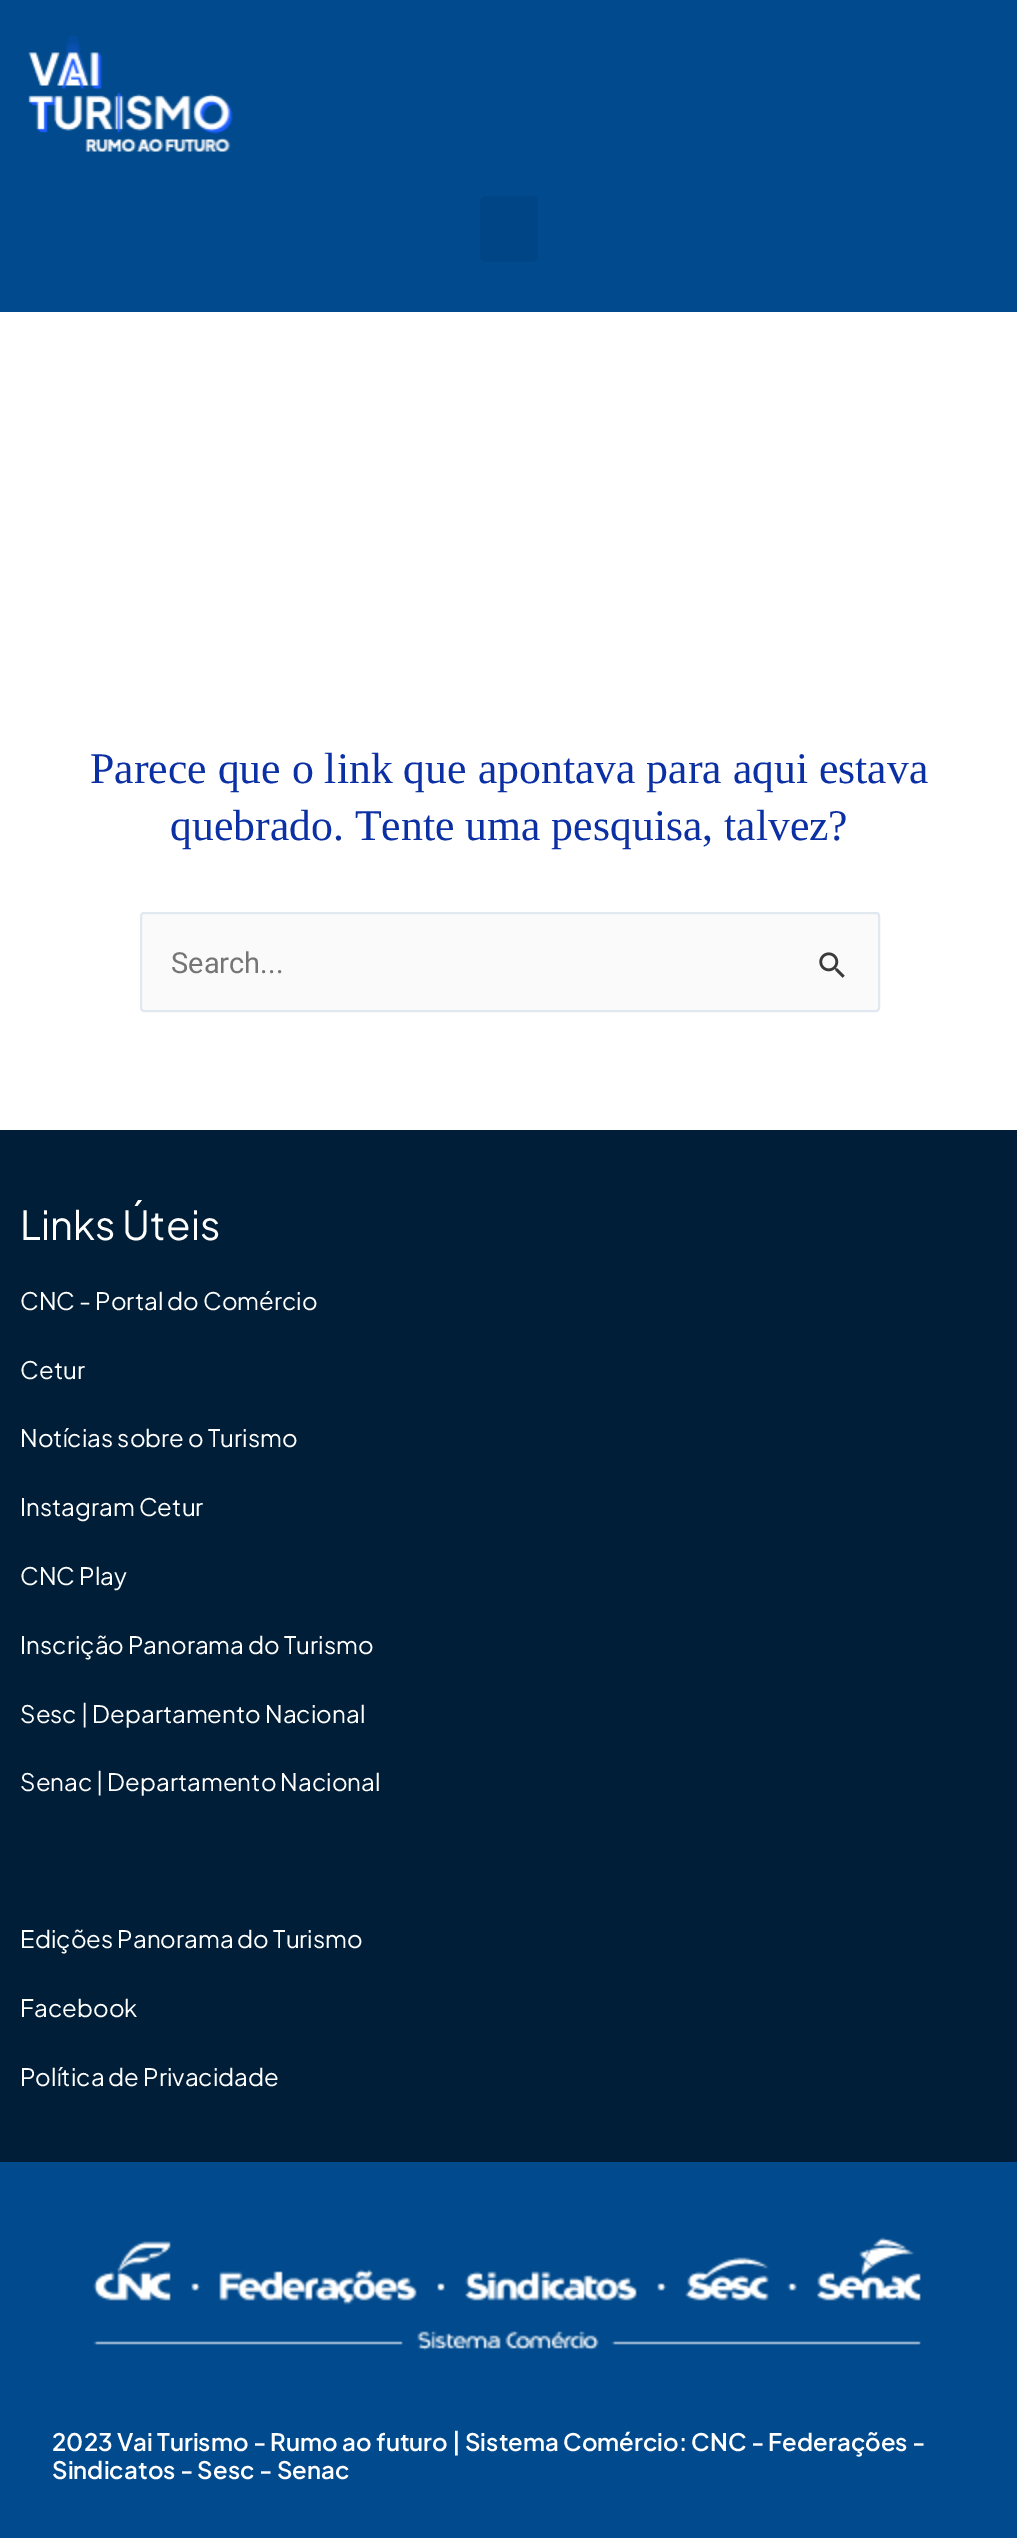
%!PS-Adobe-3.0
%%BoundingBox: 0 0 1017 2538
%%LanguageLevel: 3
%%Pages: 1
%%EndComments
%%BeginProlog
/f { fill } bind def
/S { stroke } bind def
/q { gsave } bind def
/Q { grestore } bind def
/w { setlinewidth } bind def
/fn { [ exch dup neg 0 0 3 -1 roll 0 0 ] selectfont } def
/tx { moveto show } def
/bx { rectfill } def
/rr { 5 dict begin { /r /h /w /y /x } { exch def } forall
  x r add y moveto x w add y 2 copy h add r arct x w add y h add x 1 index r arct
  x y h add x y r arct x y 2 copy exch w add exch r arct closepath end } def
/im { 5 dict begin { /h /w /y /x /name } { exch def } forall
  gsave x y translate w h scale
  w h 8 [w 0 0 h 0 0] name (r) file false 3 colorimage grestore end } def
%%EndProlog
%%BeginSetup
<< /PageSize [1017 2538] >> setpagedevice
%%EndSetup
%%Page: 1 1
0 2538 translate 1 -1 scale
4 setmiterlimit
1 setgray
0 0 1017 2538 bx
0 0.29 0.553 setrgbcolor
0 0 1017 312 bx
(image0.raw) 28 36 206 116 im
0 0.275 0.525 setrgbcolor
480 196 58 66 6 rr f
/LiberationSerif-Regular 43.75 fn
0.043 0.188 0.643 setrgbcolor
(Parece que o link que apontava para aqui estava) 90 783 tx
(quebrado. Tente uma pesquisa, talvez?) 170 840 tx
0.98 setgray
141 913 738 98 3 rr q f Q
0.886 0.91 0.941 setrgbcolor
2 w
S
/Roboto-Regular 29 fn
0.459 setgray
(Search...) 171 973 tx
(image1.raw) 819 952 26 26 im
0 0.118 0.22 setrgbcolor
0 1130 1017 1032 bx
/PlusJakartaSans-Regular 40 fn
1 setgray
(Links Úteis) 20 1240 tx
/PlusJakartaSans-Regular 24 fn
(CNC - Portal do Comércio) 20 1310 tx
(Cetur) 20 1379 tx
(Notícias sobre o Turismo) 20 1447 tx
(Instagram Cetur) 20 1516 tx
(CNC Play) 20 1585 tx
(Inscrição Panorama do Turismo) 20 1654 tx
(Sesc | Departamento Nacional) 20 1723 tx
(Senac | Departamento Nacional) 20 1791 tx
(Edições Panorama do Turismo) 20 1948 tx
(Facebook) 20 2017 tx
(Política de Privacidade) 20 2086 tx
0 0.29 0.553 setrgbcolor
0 2162 1017 376 bx
(image2.raw) 93 2237 828 114 im
/PlusJakartaSans-SemiBold 24 fn
1 setgray
(2023 Vai Turismo - Rumo ao futuro | Sistema Comércio: CNC - Federações -) 52 2451 tx
(Sindicatos - Sesc - Senac) 52 2479 tx
showpage
%%EOF
